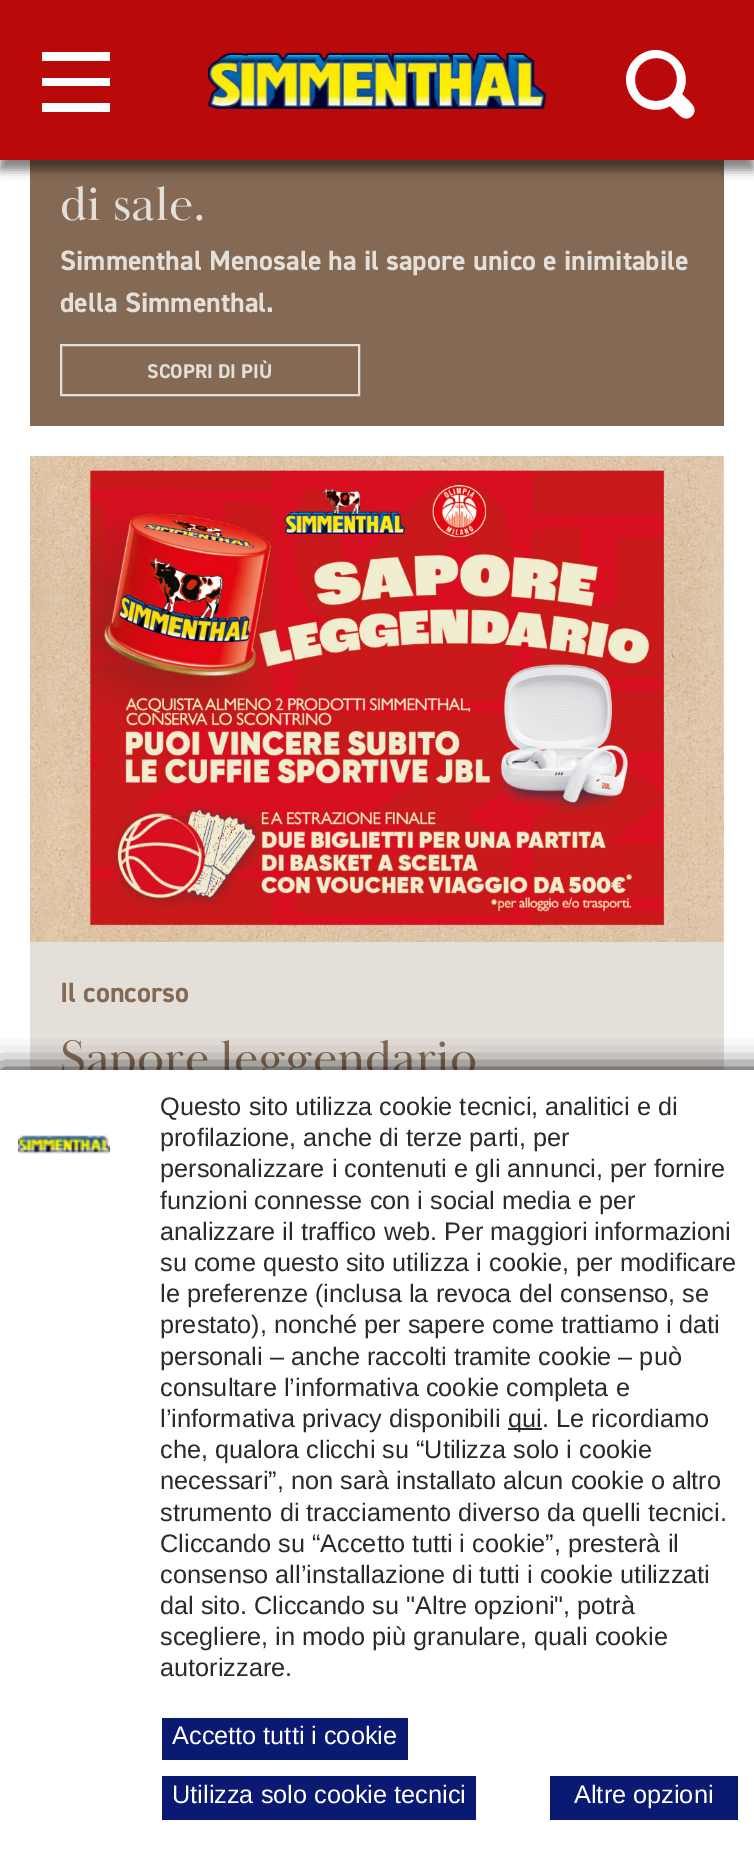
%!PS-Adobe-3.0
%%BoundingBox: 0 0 754 1868
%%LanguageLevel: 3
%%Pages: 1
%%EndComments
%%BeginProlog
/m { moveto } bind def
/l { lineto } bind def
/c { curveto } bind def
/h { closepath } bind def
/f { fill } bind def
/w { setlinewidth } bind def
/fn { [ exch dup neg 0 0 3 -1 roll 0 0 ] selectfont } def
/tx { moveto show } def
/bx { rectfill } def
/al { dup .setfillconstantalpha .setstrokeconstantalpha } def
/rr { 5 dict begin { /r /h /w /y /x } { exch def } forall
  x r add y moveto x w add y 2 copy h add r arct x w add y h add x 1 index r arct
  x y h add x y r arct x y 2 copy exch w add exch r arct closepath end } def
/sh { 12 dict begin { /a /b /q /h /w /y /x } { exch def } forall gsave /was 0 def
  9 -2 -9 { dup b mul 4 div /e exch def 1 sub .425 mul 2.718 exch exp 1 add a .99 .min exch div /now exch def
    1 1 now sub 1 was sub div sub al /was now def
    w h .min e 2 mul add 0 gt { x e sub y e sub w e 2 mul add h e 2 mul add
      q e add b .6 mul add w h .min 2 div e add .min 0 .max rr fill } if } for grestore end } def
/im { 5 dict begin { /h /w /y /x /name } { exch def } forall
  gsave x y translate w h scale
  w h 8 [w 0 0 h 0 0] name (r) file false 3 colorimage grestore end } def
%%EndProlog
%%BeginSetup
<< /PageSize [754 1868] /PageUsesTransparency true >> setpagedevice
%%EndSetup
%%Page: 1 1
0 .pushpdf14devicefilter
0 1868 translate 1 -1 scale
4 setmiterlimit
1 setgray
0 0 754 1868 bx
0.518 0.416 0.333 setrgbcolor
30 160 694 266 bx
0 setgray
0 10 754 160 0 5 0.5 sh
0.729 0.035 0.035 setrgbcolor
0 0 754 160 bx
1 setgray
42 52 m 110 52 l 110 61 l 42 61 l h 42 78 m 110 78 l 110 86 l 42 86 l h 42 103 m 110 103 l 110 112 l 42 112 l h f
(image0.raw) 208 51 338 59 im
635 59 m 659 35 698 64 682 94 c 687 99 l 692 104 698 109 692 116 c 685 122 680 116 675 111 c 670 106 l 640 122 611 83 635 59 c h 656 101 m 684 101 684 58 656 58 c 628 59 628 101 656 101 c h f
/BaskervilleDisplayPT-Regular 50 fn
0.898 0.875 0.855 setrgbcolor
(di sale.) 60 220 tx
/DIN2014-Bold 28 fn
(Simmenthal Menosale ha il sapore unico e inimitabile) 60 270 tx
(della Simmenthal.) 60 312 tx
2 w
61 345 298 50 rectstroke
/DIN2014-Bold 20 fn
(SCOPRI DI PIÙ) 147 378 tx
(image1.raw) 30 456 694 486 im
30 942 694 128 bx
/DIN2014-Bold 28 fn
0.518 0.416 0.333 setrgbcolor
(Il concorso) 60 1002 tx
/BaskervilleDisplayPT-Regular 50 fn
(Sapore leggendario) 60 1074 tx
0.071 setgray
0 1070 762 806 0 14 1 sh
1 setgray
0 1070 754 798 bx
(image2.raw) 18 1135 92 19 im
/LiberationSans-Regular 25.3 fn
0.165 setgray
(Questo sito utilizza cookie tecnici, analitici e di) 160 1115 tx
(profilazione, anche di terze parti, per) 160 1146 tx
(personalizzare i contenuti e gli annunci, per fornire) 160 1177 tx
(funzioni connesse con i social media e per) 160 1209 tx
(analizzare il traffico web. Per maggiori informazioni) 160 1240 tx
(su come questo sito utilizza i cookie, per modificare) 160 1271 tx
(le preferenze \(inclusa la revoca del) 160 1302 tx
(consenso, se) 560 1302 tx
(prestato\), nonché per sapere come trattiamo i dati) 160 1333 tx
(personali – anche raccolti tramite cookie – può) 160 1365 tx
(consultare l’informativa cookie completa e) 160 1396 tx
(l’informativa privacy disponibili) 160 1427 tx
508 1428 34 2 bx
(qui. Le ricordiamo) 508 1427 tx
(che, qualora clicchi su “Utilizza solo i cookie) 160 1458 tx
(necessari”, non sarà installato) 160 1489 tx
(alcun cookie o altro) 503 1489 tx
(strumento di tracciamento diverso da quelli tecnici.) 160 1521 tx
(Cliccando su “Accetto tutti i cookie”, presterà il) 160 1552 tx
(consenso all’installazione di tutti i cookie) 160 1583 tx
(utilizzati) 620 1583 tx
(dal sito. Cliccando su "Altre opzioni", potrà) 160 1614 tx
(scegliere, in modo più granulare, quali cookie) 160 1645 tx
(autorizzare.) 160 1676 tx
0.039 0.102 0.447 setrgbcolor
162 1718 246 42 bx
1 setgray
(Accetto tutti i cookie) 172 1744 tx
0.039 0.102 0.447 setrgbcolor
162 1776 314 44 bx
1 setgray
(Utilizza solo cookie tecnici) 172 1803 tx
0.039 0.102 0.447 setrgbcolor
550 1776 188 44 bx
1 setgray
(Altre opzioni) 574 1803 tx
.poppdf14devicefilter showpage
%%EOF
